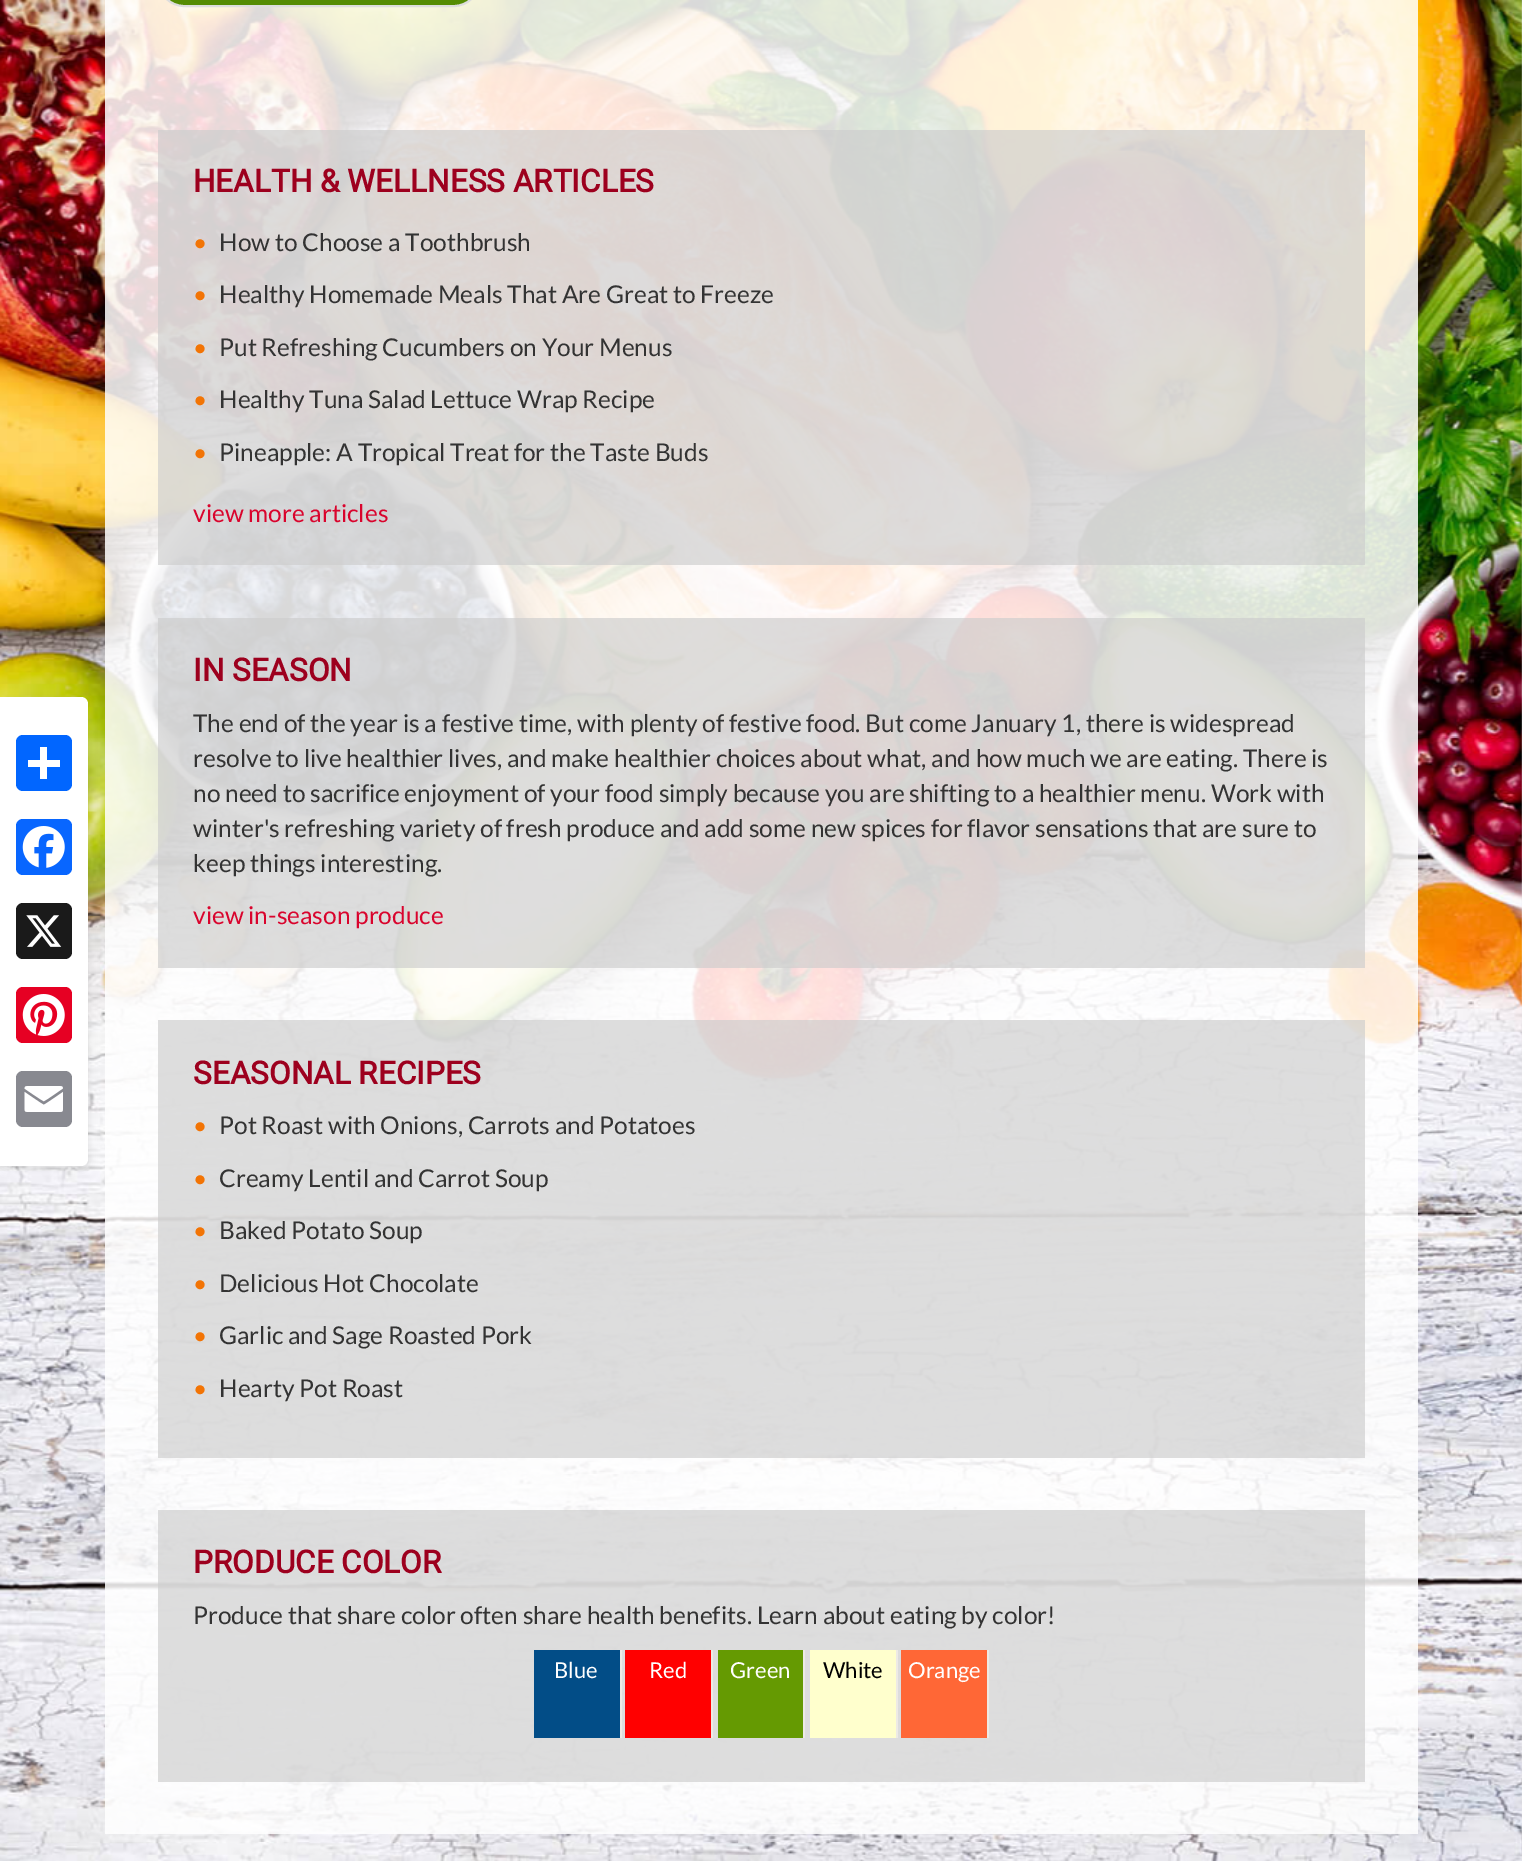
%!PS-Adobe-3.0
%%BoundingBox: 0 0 1522 1861
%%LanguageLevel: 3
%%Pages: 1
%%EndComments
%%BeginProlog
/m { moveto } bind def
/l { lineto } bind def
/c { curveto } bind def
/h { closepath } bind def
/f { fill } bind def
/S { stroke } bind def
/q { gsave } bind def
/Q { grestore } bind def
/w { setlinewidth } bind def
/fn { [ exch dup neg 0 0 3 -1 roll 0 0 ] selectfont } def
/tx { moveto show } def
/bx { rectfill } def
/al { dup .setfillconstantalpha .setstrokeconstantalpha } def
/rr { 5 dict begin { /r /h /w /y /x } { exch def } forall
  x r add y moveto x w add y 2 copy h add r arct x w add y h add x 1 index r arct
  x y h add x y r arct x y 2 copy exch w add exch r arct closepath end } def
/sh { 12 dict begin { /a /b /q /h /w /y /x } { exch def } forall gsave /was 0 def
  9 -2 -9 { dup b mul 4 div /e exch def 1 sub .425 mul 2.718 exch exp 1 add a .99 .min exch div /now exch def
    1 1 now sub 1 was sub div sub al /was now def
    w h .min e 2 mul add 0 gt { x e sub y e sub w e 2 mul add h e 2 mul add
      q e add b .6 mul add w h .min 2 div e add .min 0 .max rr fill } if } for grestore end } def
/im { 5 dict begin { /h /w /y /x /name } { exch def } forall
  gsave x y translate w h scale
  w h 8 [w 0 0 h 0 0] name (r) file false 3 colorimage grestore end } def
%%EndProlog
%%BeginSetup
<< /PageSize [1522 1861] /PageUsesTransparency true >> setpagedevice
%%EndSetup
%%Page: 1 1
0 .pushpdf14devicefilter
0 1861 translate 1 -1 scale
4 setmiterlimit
1 setgray
0 0 1522 1861 bx
(image0.raw) 0 0 1522 1861 im
0 setgray
0 700 88 469 7 4.5 0.1 sh
1 setgray
0 697 m 81 697 l 85 697 88 700 88 704 c 88 1159 l 88 1163 85 1166 81 1166 c 0 1166 l h f
0.004 0.4 1 setrgbcolor
16 735 56 56 7 rr f
1 setgray
40 747 7 32 bx
28 760 32 7 bx
0.031 0.4 1 setrgbcolor
16 819 56 56 7 rr f
(image1.raw) 22 826 43 42 im
0.102 setgray
16 903 56 56 7 rr f
(image2.raw) 26 915 36 32 im
0.902 0 0.137 setrgbcolor
16 987 56 56 7 rr f
(image3.raw) 22 994 43 42 im
0.533 0.537 0.565 setrgbcolor
16 1071 56 56 7 rr f
(image4.raw) 24 1086 39 26 im
0.85 al
1 setgray
105 0 1313 1834 bx
1 al
0.333 0.549 0.012 setrgbcolor
159 -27 320 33 25 rr q f Q
0.867 setgray
2 w
S
0.65 al
0.8 setgray
158 130 1207 435 bx
/Roboto-Bold 31.5 fn
1 al
0.616 0 0.118 setrgbcolor
(HEALTH & WELLNESS ARTICLES) 193 192 tx
/Lato-Regular 24.5 fn
0.949 0.455 0.02 setrgbcolor
(•) 193 251 tx
0.2 setgray
(How to Choose a Toothbrush) 219 251 tx
0.949 0.455 0.02 setrgbcolor
(•) 193 303 tx
0.2 setgray
(Healthy Homemade Meals That Are Great to Freeze) 219 303 tx
0.949 0.455 0.02 setrgbcolor
(•) 193 356 tx
0.2 setgray
(Put Refreshing Cucumbers on Your Menus) 219 356 tx
0.949 0.455 0.02 setrgbcolor
(•) 193 408 tx
0.2 setgray
(Healthy Tuna Salad Lettuce Wrap Recipe) 219 408 tx
0.949 0.455 0.02 setrgbcolor
(•) 193 461 tx
0.2 setgray
(Pineapple: A Tropical Treat for the Taste Buds) 219 461 tx
0.851 0.016 0.176 setrgbcolor
(view more articles) 193 522 tx
0.65 al
0.8 setgray
158 618 1207 350 bx
/Roboto-Bold 31.5 fn
1 al
0.616 0 0.118 setrgbcolor
(IN SEASON) 193 681 tx
/Lato-Regular 24.5 fn
0.2 setgray
(The end of the year is a festive time, with plenty of festive food. But come January 1, there is widespread) 193 732 tx
(resolve to live healthier lives, and make healthier choices about what, and how much we are eating. There is) 193 767 tx
(no need to sacrifice enjoyment of your food simply because you are shifting to a healthier menu. Work with) 193 802 tx
(winter's refreshing variety of fresh produce and add some new spices for flavor sensations that are sure to) 193 837 tx
(keep things interesting.) 193 872 tx
0.851 0.016 0.176 setrgbcolor
(view in-season produce) 193 924 tx
0.65 al
0.8 setgray
158 1020 1207 438 bx
/Roboto-Bold 31.5 fn
1 al
0.616 0 0.118 setrgbcolor
(SEASONAL RECIPES) 193 1084 tx
/Lato-Regular 24.5 fn
0.949 0.455 0.02 setrgbcolor
(•) 193 1134 tx
0.2 setgray
(Pot Roast with Onions, Carrots and Potatoes) 219 1134 tx
0.949 0.455 0.02 setrgbcolor
(•) 193 1187 tx
0.2 setgray
(Creamy Lentil and Carrot Soup) 219 1187 tx
0.949 0.455 0.02 setrgbcolor
(•) 193 1239 tx
0.2 setgray
(Baked Potato Soup) 219 1239 tx
0.949 0.455 0.02 setrgbcolor
(•) 193 1292 tx
0.2 setgray
(Delicious Hot Chocolate) 219 1292 tx
0.949 0.455 0.02 setrgbcolor
(•) 193 1344 tx
0.2 setgray
(Garlic and Sage Roasted Pork) 219 1344 tx
0.949 0.455 0.02 setrgbcolor
(•) 193 1397 tx
0.2 setgray
(Hearty Pot Roast) 219 1397 tx
0.65 al
0.8 setgray
158 1510 1207 272 bx
/Roboto-Bold 31.5 fn
1 al
0.616 0 0.118 setrgbcolor
(PRODUCE COLOR) 193 1573 tx
/Lato-Regular 24.5 fn
0.2 setgray
(Produce that share color often share health benefits. Learn about eating by color!) 193 1624 tx
0.008 0.302 0.529 setrgbcolor
534 1650 86 88 bx
0.929 0.918 0.898 setrgbcolor
620 1650 2 88 bx
/Lato-Regular 22 fn
1 setgray
(Blue) 554 1678 tx
1 0 0 setrgbcolor
625 1650 86 88 bx
0.929 0.918 0.898 setrgbcolor
711 1650 2 88 bx
1 setgray
(Red) 649 1678 tx
0.396 0.604 0.008 setrgbcolor
718 1650 85 88 bx
0.929 0.918 0.898 setrgbcolor
803 1650 2 88 bx
1 setgray
(Green) 730 1678 tx
1 1 0.804 setrgbcolor
810 1650 86 88 bx
0.929 0.918 0.898 setrgbcolor
896 1650 2 88 bx
0 setgray
(White) 823 1678 tx
1 0.404 0.212 setrgbcolor
901 1650 86 88 bx
0.929 0.918 0.898 setrgbcolor
987 1650 2 88 bx
1 setgray
(Orange) 908 1678 tx
.poppdf14devicefilter showpage
%%EOF
